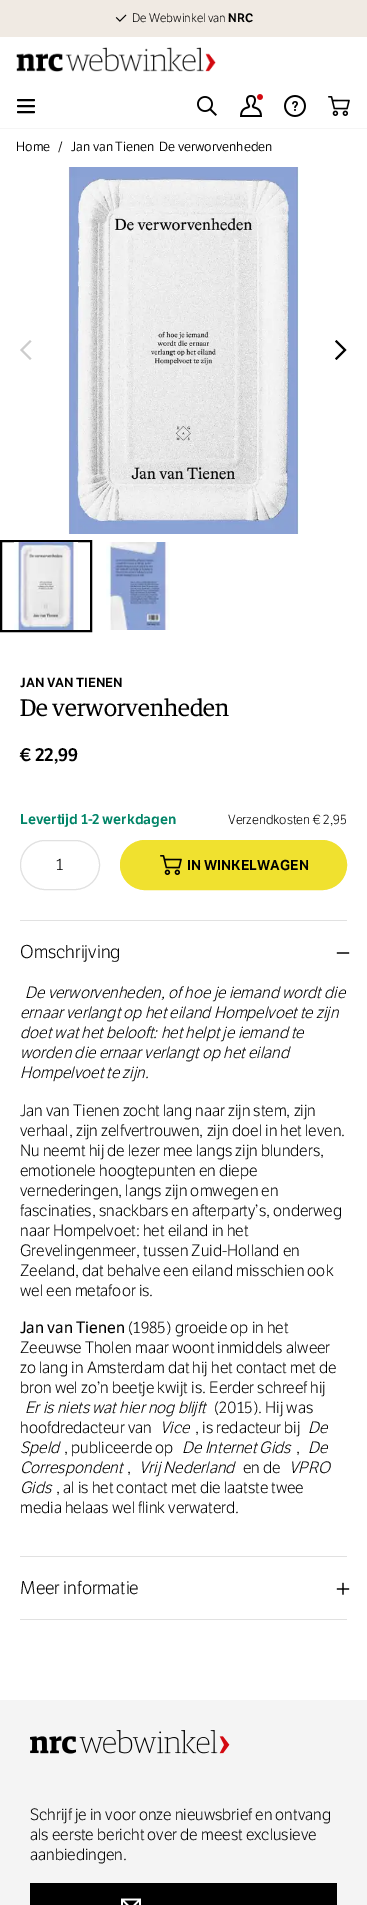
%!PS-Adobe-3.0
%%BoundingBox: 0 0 367 1905
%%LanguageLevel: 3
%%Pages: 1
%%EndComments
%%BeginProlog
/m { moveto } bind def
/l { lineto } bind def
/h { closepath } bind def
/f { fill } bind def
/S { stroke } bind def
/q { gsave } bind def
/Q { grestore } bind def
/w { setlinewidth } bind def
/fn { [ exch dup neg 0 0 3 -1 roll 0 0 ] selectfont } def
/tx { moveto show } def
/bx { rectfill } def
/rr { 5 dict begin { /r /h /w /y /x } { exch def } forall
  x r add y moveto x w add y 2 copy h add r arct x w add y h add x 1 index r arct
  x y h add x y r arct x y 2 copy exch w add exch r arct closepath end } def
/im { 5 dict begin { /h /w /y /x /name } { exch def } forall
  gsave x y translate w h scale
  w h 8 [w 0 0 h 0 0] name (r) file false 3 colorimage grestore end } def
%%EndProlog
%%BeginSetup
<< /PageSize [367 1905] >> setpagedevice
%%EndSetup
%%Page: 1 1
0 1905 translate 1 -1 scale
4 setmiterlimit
1 setgray
0 0 367 1905 bx
0.961 setgray
0 128 367 1 bx
0.941 0.918 0.89 setrgbcolor
0 0 367 37 bx
(image0.raw) 115 14 12 8 im
/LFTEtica-ExtraLight 12 fn
0 setgray
(De Webwinkel van) 132 22 tx
/LFTEtica-SemiBold 12 fn
(NRC) 228 22 tx
(image1.raw) 16 47 200 25 im
2 w
1 setlinecap
1 setlinejoin
18 100 m 34 100 l 18 106 m 34 106 l 18 112 m 34 112 l S
(image2.raw) 197 96 20 20 im
(image3.raw) 240 94 23 23 im
(image4.raw) 284 95 22 22 im
(image5.raw) 328 96 22 20 im
/LFTEtica-Light 13 fn
(Home) 16 151 tx
(/) 58 151 tx
(Jan van Tienen) 71 151 tx
(De verworvenheden) 159 151 tx
(image6.raw) 68 167 231 367 im
0.8 setgray
30 340 m 20 350 l 30 360 l 31.5 358.5 l 23 350 l 31.5 341.5 l h eofill
0 setgray
336.5 360 m 346.5 350 l 336.5 340 l 335 341.5 l 343.5 350 l 335 358.5 l h eofill
0 setlinecap
0 setlinejoin
1 541 90 90 rectstroke
(image7.raw) 14 542 64 88 im
(image8.raw) 106 542 64 88 im
/LFTEtica-SemiBold 13 fn
(JAN VAN TIENEN) 20 687 tx
/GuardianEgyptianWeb-Regular 24 fn
(De verworvenheden) 20 716 tx
/LFTEtica-SemiBold 18 fn
(€ 22,99) 20 761 tx
/LFTEtica-SemiBold 14 fn
0 0.518 0.404 setrgbcolor
(Levertijd 1-2 werkdagen) 20 824 tx
/LFTEtica-ExtraLight 13 fn
0 setgray
(Verzendkosten € 2,95) 228 824 tx
0.882 setgray
1 w
20.5 840.5 79 49 24.5 rr S
/LFTEtica-ExtraLight 16 fn
0 setgray
(1) 56 870 tx
0.941 0.882 0.184 setrgbcolor
120.5 840.5 226 49 24.5 rr q f Q
S
(image9.raw) 160 855 22 20 im
/LFTEtica-SemiBold 14 fn
0 setgray
(IN WINKELWAGEN) 187 870 tx
0.882 setgray
20 1619 327 1 bx
20 920 327 1 bx
/LFTEtica-ExtraLight 18 fn
0 setgray
(Omschrijving) 20 958 tx
1.3 w
1 setlinecap
1 setlinejoin
348.5 953 m 337.5 953 l 348.5 953 m 337.5 953 l S
/LFTEtica-ExtraLightItalic 16 fn
(De verworvenheden, of hoe je iemand wordt die) 25 998 tx
(ernaar verlangt op het eiland Hompelvoet te zijn) 20 1018 tx
(doet wat het belooft: het helpt je iemand te) 20 1038 tx
(worden die ernaar verlangt op het eiland) 20 1058 tx
(Hompelvoet te zijn.) 20 1078 tx
/LFTEtica-ExtraLight 16 fn
(Jan van Tienen zocht lang naar zijn stem, zijn) 20 1116 tx
(verhaal, zijn zelfvertrouwen, zijn doel in het leven.) 20 1136 tx
(Nu neemt hij de lezer mee langs zijn blunders,) 20 1156 tx
(emotionele hoogtepunten en diepe) 20 1176 tx
(vernederingen, langs zijn omwegen en) 20 1196 tx
(fascinaties, snackbars en afterparty’s, onderweg) 20 1216 tx
(naar Hompelvoet: het eiland in het) 20 1236 tx
(Grevelingenmeer, tussen Zuid-Holland en) 20 1256 tx
(Zeeland, dat behalve een eiland misschien ook) 20 1276 tx
(wel een metafoor is.) 20 1296 tx
/LFTEtica-Regular 16 fn
(Jan van Tienen) 20 1333 tx
/LFTEtica-ExtraLight 16 fn
(\(1985\) groeide op in het) 128 1333 tx
(Zeeuwse Tholen maar woont inmiddels alweer) 20 1353 tx
(zo lang in Amsterdam dat hij het contact met de) 20 1373 tx
(bron wel zo’n beetje kwijt is. Eerder schreef hij) 20 1393 tx
/LFTEtica-ExtraLightItalic 16 fn
(Er is niets wat hier nog blijft) 25 1413 tx
/LFTEtica-ExtraLight 16 fn
(\(2015\). Hij was) 214 1413 tx
(hoofdredacteur van) 20 1433 tx
/LFTEtica-ExtraLightItalic 16 fn
(Vice) 160 1433 tx
/LFTEtica-ExtraLight 16 fn
(, is redacteur bij) 195 1433 tx
/LFTEtica-ExtraLightItalic 16 fn
(De) 308 1433 tx
(Speld) 20 1453 tx
/LFTEtica-ExtraLight 16 fn
(, publiceerde op) 64 1453 tx
/LFTEtica-ExtraLightItalic 16 fn
(De Internet Gids) 182 1453 tx
/LFTEtica-ExtraLight 16 fn
(,) 296 1453 tx
/LFTEtica-ExtraLightItalic 16 fn
(De) 308 1453 tx
(Correspondent) 20 1473 tx
/LFTEtica-ExtraLight 16 fn
(,) 127 1473 tx
/LFTEtica-ExtraLightItalic 16 fn
(Vrij Nederland) 139 1473 tx
/LFTEtica-ExtraLight 16 fn
(en de) 243 1473 tx
/LFTEtica-ExtraLightItalic 16 fn
(VPRO) 289 1473 tx
(Gids) 20 1493 tx
/LFTEtica-ExtraLight 16 fn
(, al is het contact met die laatste twee) 56 1493 tx
(media helaas wel flink verwaterd.) 20 1513 tx
0.882 setgray
20 1556 327 1 bx
/LFTEtica-ExtraLight 18 fn
0 setgray
(Meer informatie) 20 1594 tx
343 1594 m 343 1583.5 l 348.5 1589 m 337.5 1589 l S
0.957 setgray
0 1700 367 205 bx
(image10.raw) 30 1730 200 24 im
/LFTEtica-ExtraLight 16 fn
0 setgray
(Schrijf je in voor onze nieuwsbrief en ontvang) 30 1820 tx
(als eerste bericht over de meest exclusieve) 30 1840 tx
(aanbiedingen.) 30 1860 tx
30 1883 307 22 bx
(image11.raw) 121 1898 20 7 im
showpage
%%EOF
